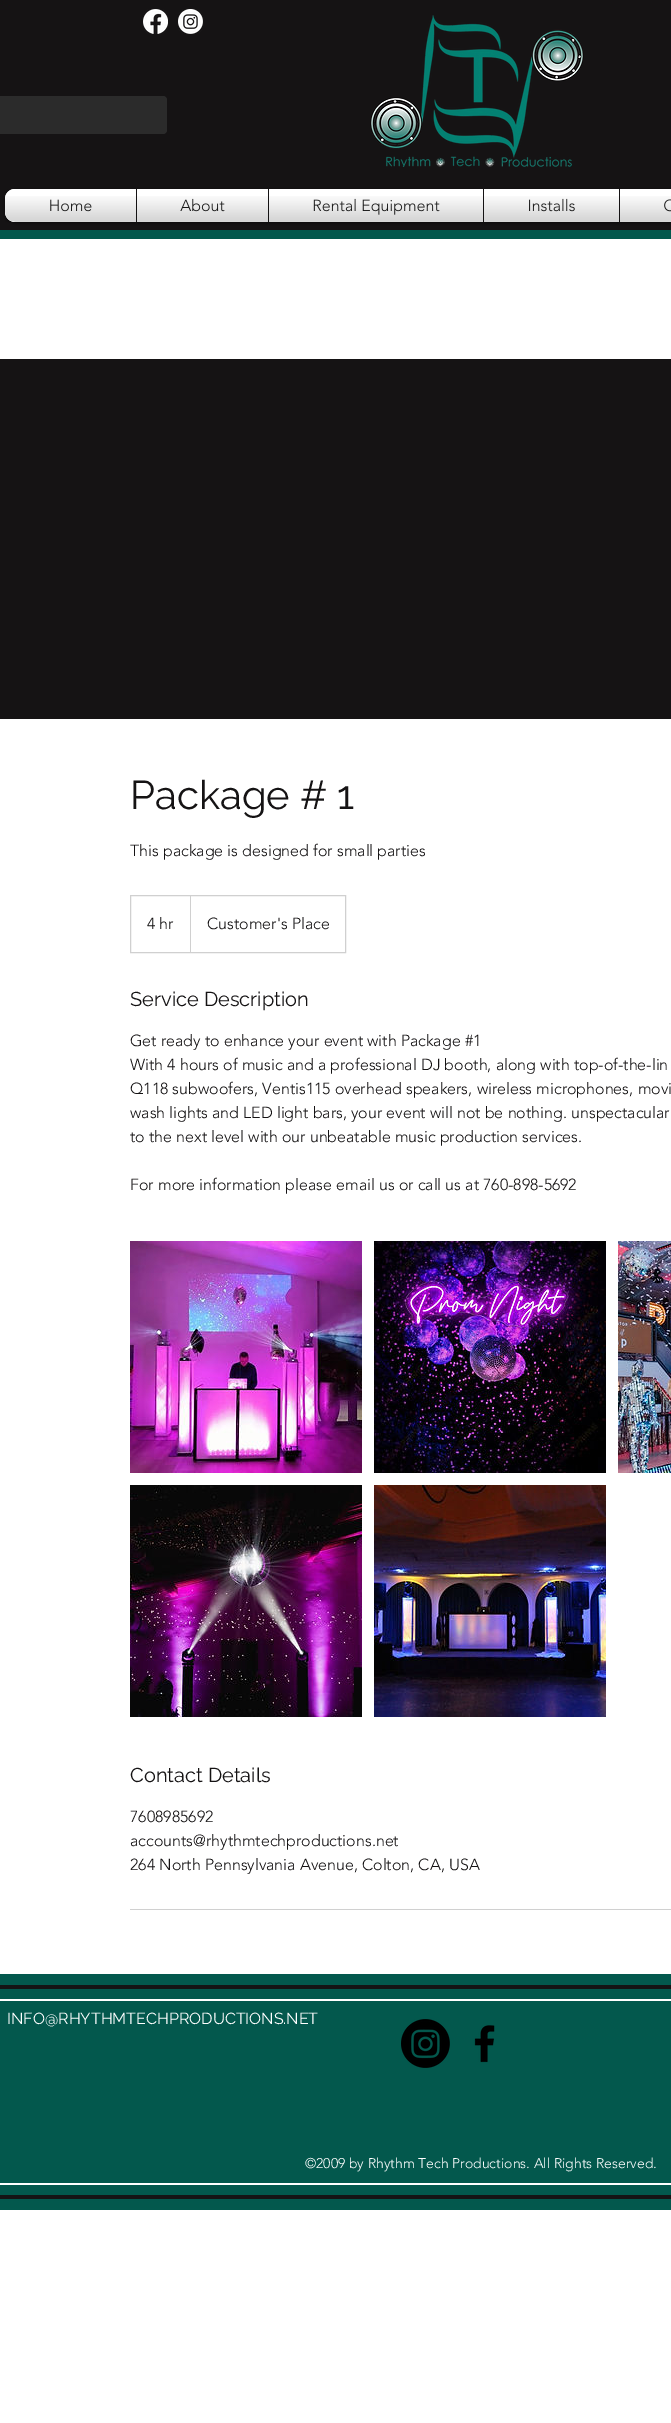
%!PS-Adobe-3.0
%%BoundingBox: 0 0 671 2423
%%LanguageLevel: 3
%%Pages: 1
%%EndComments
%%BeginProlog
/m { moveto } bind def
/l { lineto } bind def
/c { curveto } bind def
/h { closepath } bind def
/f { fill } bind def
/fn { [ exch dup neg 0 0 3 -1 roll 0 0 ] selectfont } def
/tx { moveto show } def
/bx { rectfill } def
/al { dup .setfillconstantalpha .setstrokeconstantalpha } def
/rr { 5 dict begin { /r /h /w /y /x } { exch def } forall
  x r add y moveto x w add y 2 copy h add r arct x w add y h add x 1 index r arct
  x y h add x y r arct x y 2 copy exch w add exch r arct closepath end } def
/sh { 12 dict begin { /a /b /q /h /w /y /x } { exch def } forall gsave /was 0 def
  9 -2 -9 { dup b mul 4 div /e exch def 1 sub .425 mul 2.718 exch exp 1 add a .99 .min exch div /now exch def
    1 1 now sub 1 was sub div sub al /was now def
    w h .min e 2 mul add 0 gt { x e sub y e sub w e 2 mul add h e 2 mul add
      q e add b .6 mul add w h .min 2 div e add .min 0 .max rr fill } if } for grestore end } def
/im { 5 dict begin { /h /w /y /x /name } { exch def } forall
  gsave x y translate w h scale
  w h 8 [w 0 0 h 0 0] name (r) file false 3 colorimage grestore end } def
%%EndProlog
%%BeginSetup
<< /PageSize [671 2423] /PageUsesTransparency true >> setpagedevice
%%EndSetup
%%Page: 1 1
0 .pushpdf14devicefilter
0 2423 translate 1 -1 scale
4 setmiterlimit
1 setgray
0 0 671 2423 bx
0.082 0.075 0.078 setrgbcolor
0 0 671 230 bx
0.169 setgray
-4 96 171 38 4 rr f
(image0.raw) 143 9 25 25 im
(image1.raw) 178 9 25 25 im
(image2.raw) 370 15 214 152 im
0 setgray
5 190 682 33 10 2 0.6 sh
(image3.raw) 5 189 9 8 im
(image4.raw) 5 198 10 24 im
1 setgray
15 189 m 136 189 l 136 222 l 15 222 l 9.5 222 5 217.5 5 212 c 5 199 l 5 193.5 9.5 189 15 189 c h f
/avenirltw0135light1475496-Light 16 fn
0 setgray
(Home) 49 211 tx
(image5.raw) 50 199 42 12 im
(image6.raw) 5 196 131 26 im
1 setgray
137 189 131 33 bx
0.082 0.075 0.078 setrgbcolor
136 189 1 33 bx
0 setgray
(About) 180 211 tx
(image7.raw) 180 199 45 12 im
(image8.raw) 137 196 131 26 im
1 setgray
269 189 214 33 bx
0.082 0.075 0.078 setrgbcolor
268 189 1 33 bx
0 setgray
(Rental Equipment) 312 211 tx
(image9.raw) 313 199 127 16 im
(image10.raw) 269 196 214 26 im
1 setgray
484 189 135 33 bx
0.082 0.075 0.078 setrgbcolor
483 189 1 33 bx
0 setgray
(Installs) 527 211 tx
(image11.raw) 529 199 46 12 im
(image12.raw) 484 196 135 26 im
1 setgray
620 189 51 33 bx
0.082 0.075 0.078 setrgbcolor
619 189 1 33 bx
0 setgray
(C) 663 211 tx
(image13.raw) 664 199 7 13 im
(image14.raw) 620 196 51 26 im
0.012 0.345 0.302 setrgbcolor
0 230 671 9 bx
0.082 0.075 0.078 setrgbcolor
0 359 671 360 bx
/Raleway-Regular 40 fn
(Package # 1) 130 809 tx
/avenirltw0135light1475496-Light 16 fn
(This package is designed for small parties) 130 856 tx
0.816 setgray
130.5 895.5 215 57 rectstroke
0.082 0.075 0.078 setrgbcolor
(4 hr) 147 929 tx
0.816 setgray
190 952 m 190 895 l 191 896 l 191 952 l h f
0.082 0.075 0.078 setrgbcolor
(Customer's Place) 207 929 tx
/Raleway-Regular 20 fn
(Service Description) 130 1006 tx
/avenirltw0135light1475496-Light 16 fn
(Get ready to enhance your event with Package #1) 130 1046 tx
(With 4 hours of music and a professional DJ booth, along with top-of-the-lin) 130 1070 tx
(Q118 subwoofers, Ventis115 overhead speakers, wireless microphones, movi) 130 1094 tx
(wash lights and LED light bars, your event will not be nothing. unspectacular) 130 1118 tx
(to the next level with our unbeatable music production services.) 130 1142 tx
(For more information please email us or call us at 760-898-5692) 130 1190 tx
(image15.raw) 130 1241 232 232 im
(image16.raw) 374 1241 232 232 im
(image17.raw) 618 1241 53 232 im
(image18.raw) 130 1485 232 232 im
(image19.raw) 374 1485 232 232 im
/Raleway-Regular 20 fn
(Contact Details) 130 1782 tx
/avenirltw0135light1475496-Light 16 fn
(7608985692) 130 1822 tx
(accounts@rhythmtechproductions.net) 130 1846 tx
(264 North Pennsylvania Avenue, Colton, CA, USA) 130 1870 tx
0.816 setgray
130 1909 541 1 bx
0.012 0.345 0.302 setrgbcolor
0 1974 671 236 bx
0.082 0.075 0.078 setrgbcolor
0 1985 671 4 bx
0 2195 671 4 bx
1 setgray
0 1999 671 2 bx
0 2183 671 2 bx
/Raleway-Regular 16 fn
(INFO@RHYTHMTECHPRODUCTIONS.NET) 7 2024 tx
(image20.raw) 401 2019 49 49 im
(image21.raw) 474 2025 21 38 im
/avenirltw0135light1475496-Light 14 fn
(©2009 by Rhythm Tech Productions. All Rights Reserved.) 305 2168 tx
.poppdf14devicefilter showpage
%%EOF
